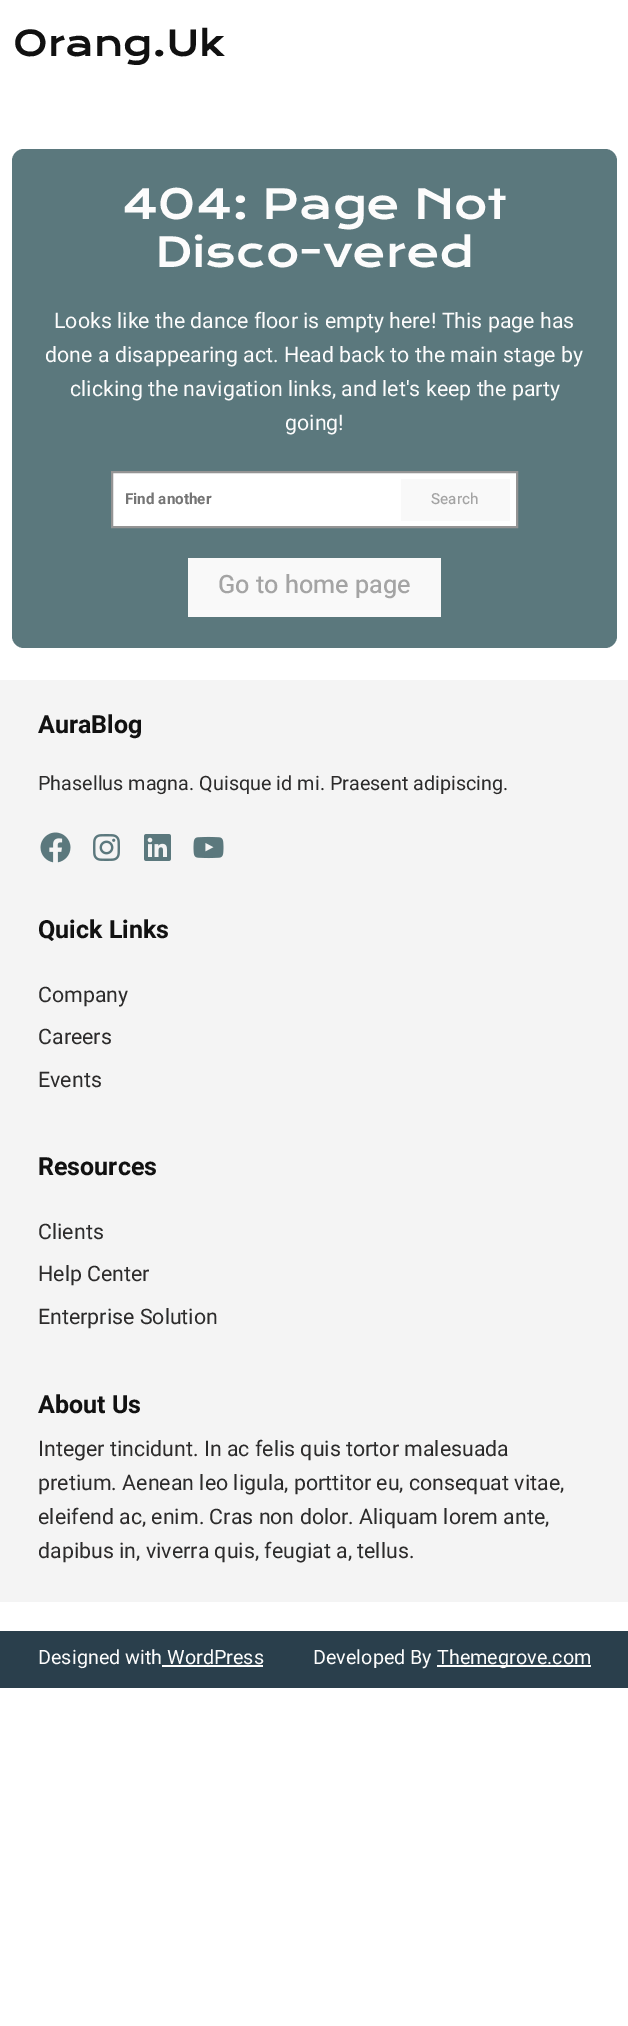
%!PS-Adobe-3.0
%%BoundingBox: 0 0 628 2026
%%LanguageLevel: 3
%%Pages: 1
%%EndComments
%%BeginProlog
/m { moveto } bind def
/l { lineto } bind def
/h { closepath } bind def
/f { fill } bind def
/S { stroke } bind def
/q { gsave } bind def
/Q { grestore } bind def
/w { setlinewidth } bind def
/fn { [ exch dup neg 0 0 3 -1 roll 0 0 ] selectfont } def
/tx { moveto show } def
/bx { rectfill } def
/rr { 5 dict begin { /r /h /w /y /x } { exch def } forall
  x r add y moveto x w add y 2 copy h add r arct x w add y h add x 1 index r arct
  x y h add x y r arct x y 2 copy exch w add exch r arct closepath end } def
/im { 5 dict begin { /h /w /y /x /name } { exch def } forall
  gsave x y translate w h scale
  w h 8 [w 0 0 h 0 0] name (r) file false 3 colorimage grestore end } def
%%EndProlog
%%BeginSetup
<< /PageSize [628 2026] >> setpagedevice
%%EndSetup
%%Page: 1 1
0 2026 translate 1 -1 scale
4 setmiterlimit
1 setgray
0 0 628 2026 bx
/KronaOne-Regular 34.75 fn
0.067 setgray
(Orang.Uk) 13 56 tx
0.357 0.471 0.49 setrgbcolor
12 149 605 499 12 rr f
/KronaOne-Regular 40.4 fn
0.988 setgray
(404: Page Not) 121 219 tx
(Disco-vered) 155 267 tx
/Heebo-Regular 21.35 fn
(Looks like the dance floor is empty here! This page has) 54 328 tx
(done a disappearing act. Head back to the main stage by) 45 362 tx
(clicking the navigation links, and let's keep the party) 70 396 tx
(going!) 285 430 tx
1 setgray
112 472 m 517 472 l 517 527 l 112 527 l h q f Q
0.58 setgray
2 w
S
/Heebo-Bold 15.25 fn
0.459 setgray
(Find another) 125 504 tx
0.976 setgray
401 479 109 42 bx
/Heebo-Medium 15.25 fn
0.643 setgray
(Search) 431 504 tx
0.976 setgray
188 558 253 59 bx
/Heebo-Medium 25.25 fn
0.643 setgray
(Go to home page) 218 593 tx
0.957 setgray
0 680 628 922 bx
/Heebo-Bold 25 fn
0.067 setgray
(AuraBlog) 38 733 tx
/Heebo-Regular 19.75 fn
0.173 0.169 0.169 setrgbcolor
(Phasellus magna. Quisque id mi. Praesent adipiscing.) 38 790 tx
(image0.raw) 40 832 31 31 im
(image1.raw) 93 834 27 27 im
(image2.raw) 144 834 27 27 im
(image3.raw) 193 836 31 23 im
/Heebo-Bold 25 fn
0.067 setgray
(Quick Links) 38 938 tx
/Heebo-Regular 21.35 fn
0.173 0.169 0.169 setrgbcolor
(Company) 38 1002 tx
(Careers) 38 1044 tx
(Events) 38 1087 tx
/Heebo-Bold 25 fn
0.067 setgray
(Resources) 38 1175 tx
/Heebo-Regular 21.35 fn
0.173 0.169 0.169 setrgbcolor
(Clients) 38 1239 tx
(Help Center) 38 1281 tx
(Enterprise Solution) 38 1324 tx
/Heebo-Bold 25 fn
0.067 setgray
(About Us) 38 1413 tx
/Heebo-Regular 21.35 fn
0.173 0.169 0.169 setrgbcolor
(Integer tincidunt. In ac felis quis tortor malesuada) 38 1456 tx
(pretium. Aenean leo ligula, porttitor eu, consequat vitae,) 38 1490 tx
(eleifend ac, enim. Cras non dolor. Aliquam lorem ante,) 38 1524 tx
(dapibus in, viverra quis, feugiat a, tellus.) 38 1558 tx
0.165 0.247 0.298 setrgbcolor
0 1631 628 57 bx
/Heebo-Regular 19.75 fn
0.988 setgray
(Designed with WordPress) 38 1664 tx
1 setgray
162 1665 101 2 bx
0.988 setgray
(Developed By) 313 1664 tx
1 setgray
437 1665 154 2 bx
0.988 setgray
(Themegrove.com) 437 1664 tx
showpage
%%EOF
